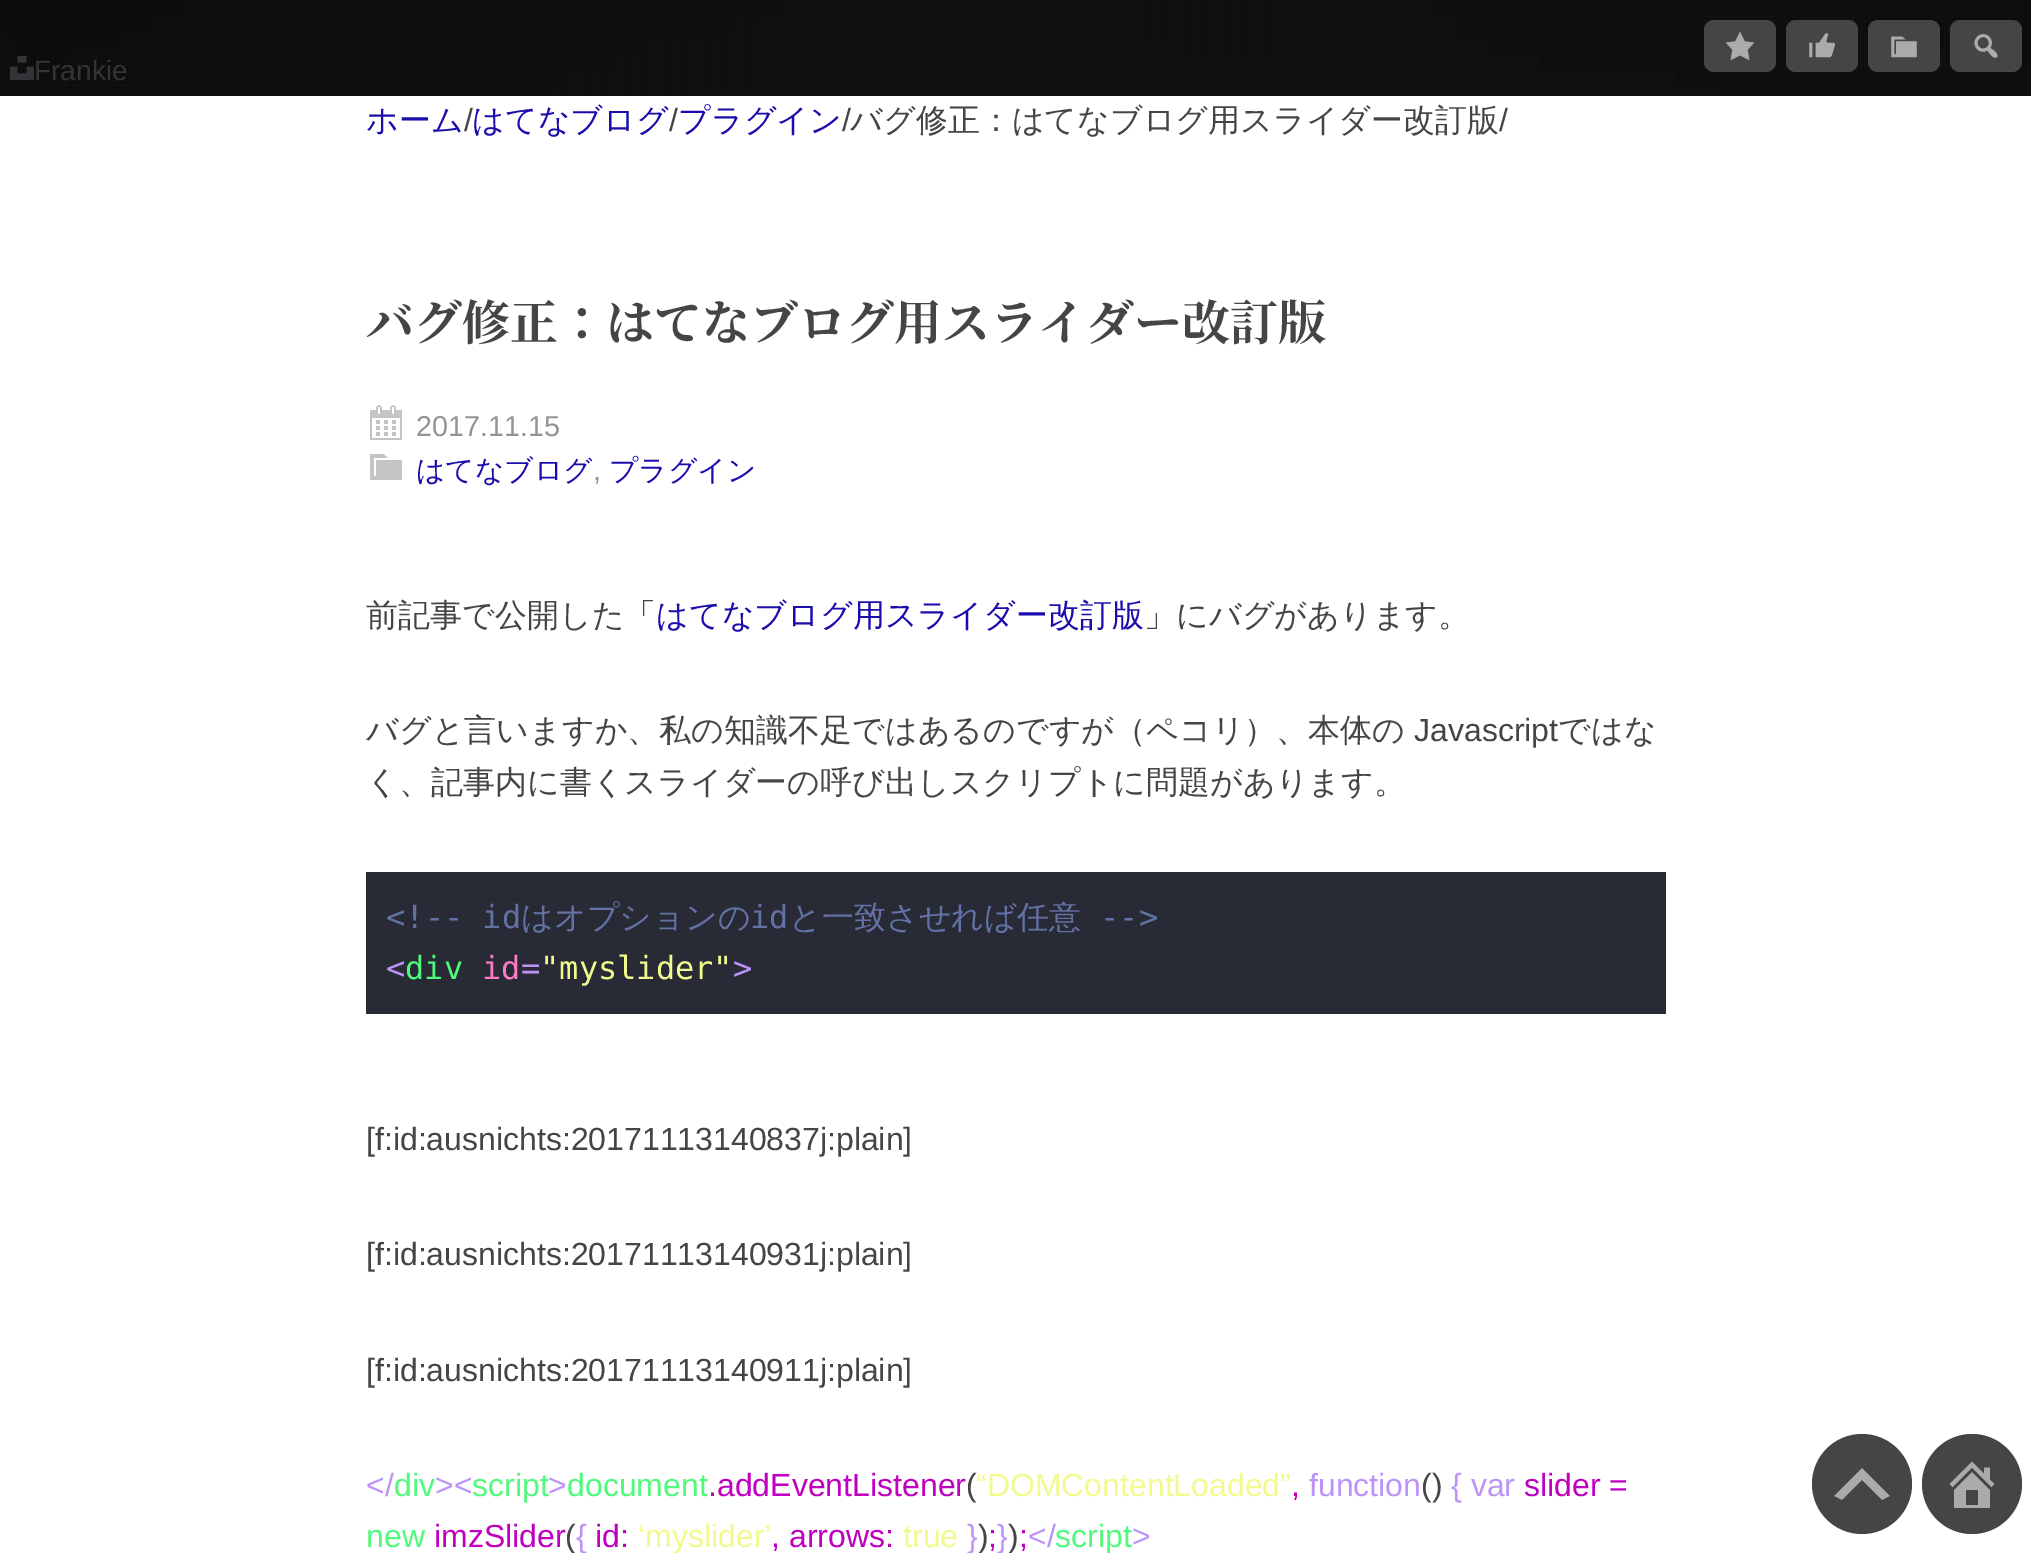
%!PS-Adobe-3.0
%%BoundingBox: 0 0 2031 1553
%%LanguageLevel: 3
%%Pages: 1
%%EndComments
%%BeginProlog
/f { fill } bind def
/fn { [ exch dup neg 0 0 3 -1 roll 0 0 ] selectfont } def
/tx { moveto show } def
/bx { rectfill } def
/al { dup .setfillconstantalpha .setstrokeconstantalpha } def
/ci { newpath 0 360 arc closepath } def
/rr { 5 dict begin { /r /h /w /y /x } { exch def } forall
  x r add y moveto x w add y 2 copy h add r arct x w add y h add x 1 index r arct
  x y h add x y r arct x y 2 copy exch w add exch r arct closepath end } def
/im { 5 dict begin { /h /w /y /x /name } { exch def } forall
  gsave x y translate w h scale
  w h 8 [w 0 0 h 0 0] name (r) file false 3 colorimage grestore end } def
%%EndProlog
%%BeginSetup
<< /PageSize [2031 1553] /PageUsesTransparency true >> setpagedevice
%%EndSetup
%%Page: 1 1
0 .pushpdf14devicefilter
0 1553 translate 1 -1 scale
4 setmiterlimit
1 setgray
0 0 2031 1553 bx
(image0.raw) 0 0 2031 96 im
(image1.raw) 2 0 2029 96 im
(image2.raw) 10 56 24 24 im
/LiberationSans-Regular 28 fn
0.541 0.541 0.592 setrgbcolor
(Frankie) 34 80 tx
0.63 al
0 setgray
0 0 2031 96 bx
1 al
0.271 setgray
1704 20 72 52 10 rr f
(image3.raw) 1725 31 30 30 im
1786 20 72 52 10 rr f
(image4.raw) 1809 33 26 25 im
1868 20 72 52 10 rr f
(image5.raw) 1891 36 26 22 im
1950 20 72 52 10 rr f
(image6.raw) 1974 34 24 24 im
/WenQuanYiZenHei-Medium 32 fn
0.102 0.051 0.671 setrgbcolor
(ホーム) 366 131 tx
/LiberationSans-Regular 32 fn
0.271 setgray
(/) 464 131 tx
/WenQuanYiZenHei-Medium 32 fn
0.102 0.051 0.671 setrgbcolor
(はてなブログ) 472 131 tx
/LiberationSans-Regular 32 fn
0.271 setgray
(/) 669 131 tx
/WenQuanYiZenHei-Medium 32 fn
0.102 0.051 0.671 setrgbcolor
(プラグイン) 678 131 tx
/LiberationSans-Regular 32 fn
0.271 setgray
(/) 842 131 tx
/WenQuanYiZenHei-Medium 32 fn
(バグ修正：はてなブログ用スライダー改訂版) 850 131 tx
/LiberationSans-Regular 32 fn
(/) 1499 131 tx
/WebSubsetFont-Bold 48 fn
(バグ修正：はてなブログ用スライダー改訂版) 366 340 tx
(image7.raw) 370 405 32 35 im
/LiberationSans-Regular 28.75 fn
0.573 setgray
(2017.11.15) 416 436 tx
(image8.raw) 370 454 32 26 im
/WenQuanYiZenHei-Medium 28.75 fn
0.102 0.051 0.671 setrgbcolor
(はてなブログ) 416 480 tx
/LiberationSans-Regular 28.75 fn
0.573 setgray
(,) 593 480 tx
/WenQuanYiZenHei-Medium 28.75 fn
0.102 0.051 0.671 setrgbcolor
(プラグイン) 609 480 tx
/WenQuanYiZenHei-Medium 32 fn
0.271 setgray
(前記事で公開した「) 366 626 tx
0.102 0.051 0.671 setrgbcolor
(はてなブログ用スライダー改訂版) 656 626 tx
0.271 setgray
(」にバグがあります。) 1144 626 tx
(バグと言いますか、私の知識不足ではあるのですが（ペコリ）、本体の) 366 741 tx
/LiberationSans-Regular 32 fn
(Javascript) 1414 741 tx
/WenQuanYiZenHei-Medium 32 fn
(ではな) 1558 741 tx
(く、記事内に書くスライダーの呼び出しスクリプトに問題があります。) 366 793 tx
0.157 0.165 0.212 setrgbcolor
366 872 1300 142 bx
/DejaVuSansMono-Regular 32 fn
0.384 0.447 0.643 setrgbcolor
(<!-- id) 386 928 tx
/WenQuanYiZenHei-Medium 32 fn
(はオプションの) 521 928 tx
/DejaVuSansMono-Regular 32 fn
(id) 750 928 tx
/WenQuanYiZenHei-Medium 32 fn
(と一致させれば任意) 789 928 tx
/DejaVuSansMono-Regular 32 fn
(-->) 1100 928 tx
0.741 0.576 0.976 setrgbcolor
(<) 386 979 tx
0.314 0.98 0.482 setrgbcolor
(div) 405 979 tx
1 0.475 0.776 setrgbcolor
(id) 482 979 tx
0.741 0.576 0.976 setrgbcolor
(=) 521 979 tx
0.945 0.98 0.549 setrgbcolor
("myslider") 540 979 tx
0.741 0.576 0.976 setrgbcolor
(>) 733 979 tx
/LiberationSans-Regular 32 fn
0.271 setgray
([f:id:ausnichts:20171113140837j:plain]) 366 1150 tx
([f:id:ausnichts:20171113140931j:plain]) 366 1265 tx
([f:id:ausnichts:20171113140911j:plain]) 366 1381 tx
0.741 0.576 0.976 setrgbcolor
(</) 366 1496 tx
0.314 0.98 0.482 setrgbcolor
(div) 394 1496 tx
0.741 0.576 0.976 setrgbcolor
(><) 435 1496 tx
0.314 0.98 0.482 setrgbcolor
(script) 472 1496 tx
0.741 0.576 0.976 setrgbcolor
(>) 548 1496 tx
0.314 0.98 0.482 setrgbcolor
(document) 567 1496 tx
0.753 0 0.753 setrgbcolor
(.addEventListener) 708 1496 tx
0.271 setgray
(\() 966 1496 tx
0.945 0.98 0.549 setrgbcolor
(“DOMContentLoaded”) 976 1496 tx
0.741 0.576 0.976 setrgbcolor
(function) 1309 1496 tx
0.271 setgray
(\(\)) 1421 1496 tx
0.741 0.576 0.976 setrgbcolor
({ var) 1451 1496 tx
0.753 0 0.753 setrgbcolor
(slider =) 1524 1496 tx
(,) 1291 1496 tx
0.314 0.98 0.482 setrgbcolor
(new) 366 1547 tx
0.753 0 0.753 setrgbcolor
(imzSlider) 434 1547 tx
0.271 setgray
(\() 565 1547 tx
0.741 0.576 0.976 setrgbcolor
({) 576 1547 tx
0.753 0 0.753 setrgbcolor
(id:) 595 1547 tx
0.945 0.98 0.549 setrgbcolor
(‘myslider’) 638 1547 tx
0.753 0 0.753 setrgbcolor
(, arrows:) 771 1547 tx
0.945 0.98 0.549 setrgbcolor
(true) 903 1547 tx
0.741 0.576 0.976 setrgbcolor
(}) 967 1547 tx
0.271 setgray
(\)) 978 1547 tx
0.753 0 0.753 setrgbcolor
(;) 988 1547 tx
0.741 0.576 0.976 setrgbcolor
(}) 997 1547 tx
0.271 setgray
(\)) 1008 1547 tx
0.753 0 0.753 setrgbcolor
(;) 1019 1547 tx
0.741 0.576 0.976 setrgbcolor
(</) 1028 1547 tx
0.314 0.98 0.482 setrgbcolor
(script) 1055 1547 tx
0.741 0.576 0.976 setrgbcolor
(>) 1132 1547 tx
0.271 setgray
1862 1484 50 ci f
(image9.raw) 1834 1468 56 32 im
1972 1484 50 ci f
(image10.raw) 1949 1461 46 47 im
.poppdf14devicefilter showpage
%%EOF
